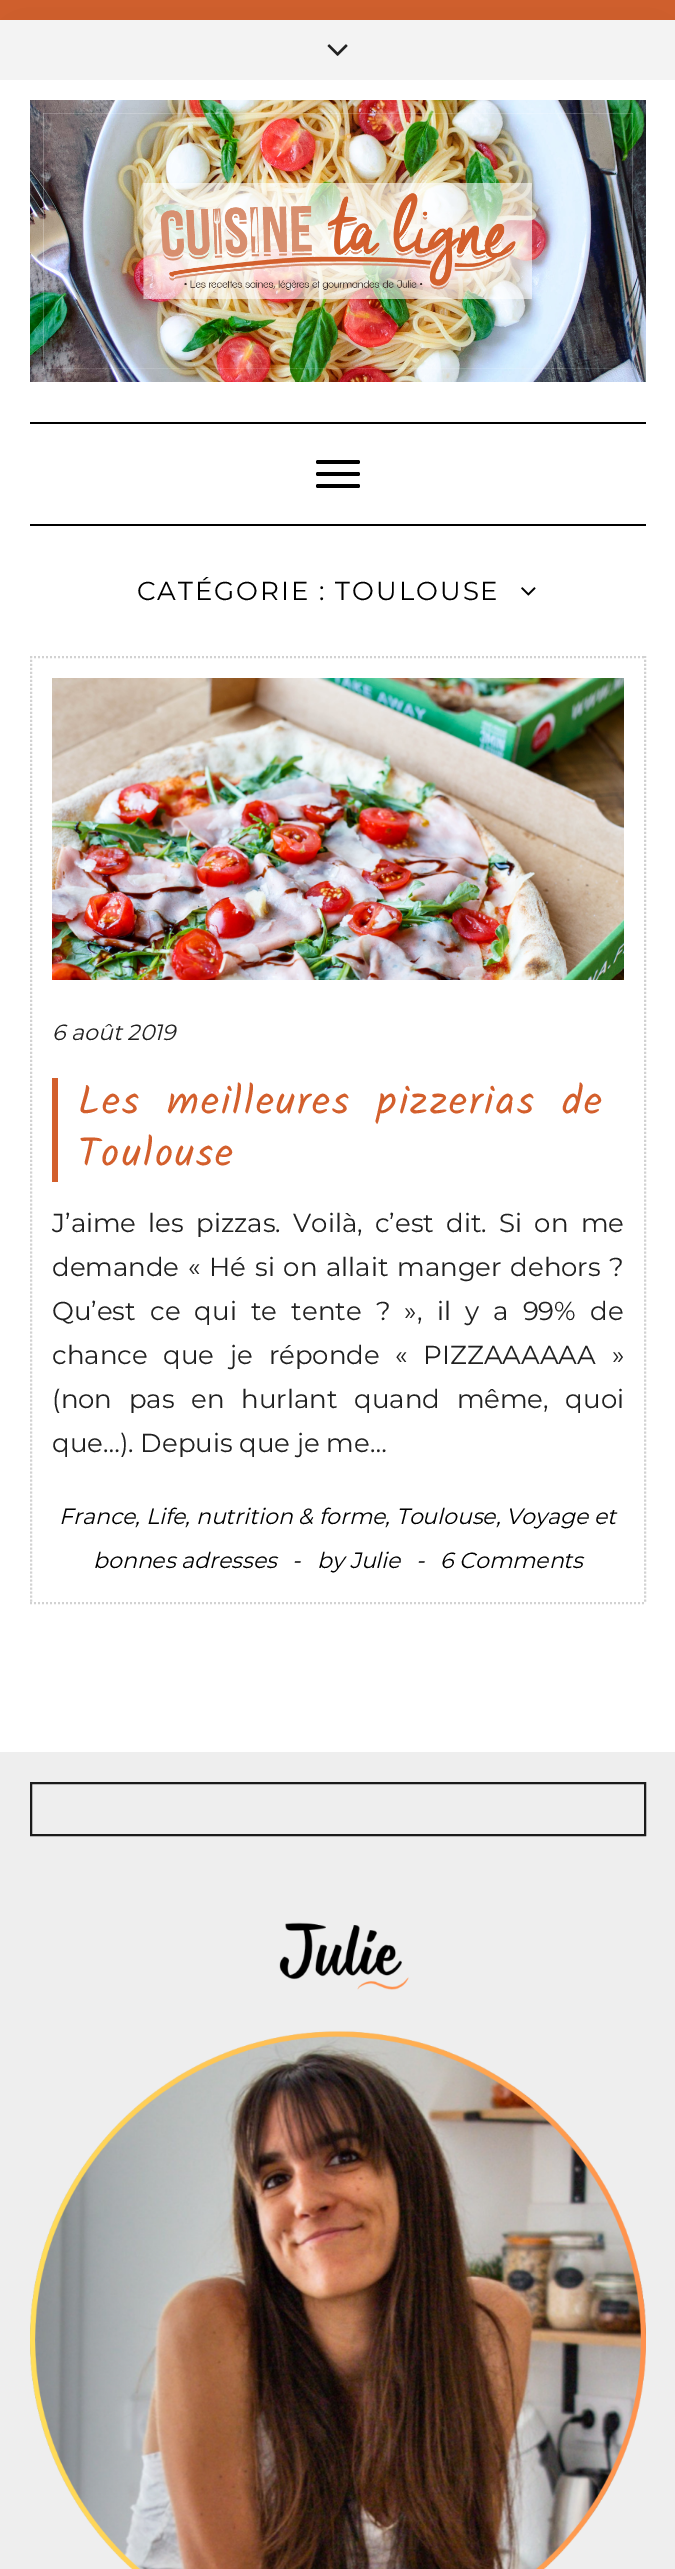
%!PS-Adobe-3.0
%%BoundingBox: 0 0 675 2569
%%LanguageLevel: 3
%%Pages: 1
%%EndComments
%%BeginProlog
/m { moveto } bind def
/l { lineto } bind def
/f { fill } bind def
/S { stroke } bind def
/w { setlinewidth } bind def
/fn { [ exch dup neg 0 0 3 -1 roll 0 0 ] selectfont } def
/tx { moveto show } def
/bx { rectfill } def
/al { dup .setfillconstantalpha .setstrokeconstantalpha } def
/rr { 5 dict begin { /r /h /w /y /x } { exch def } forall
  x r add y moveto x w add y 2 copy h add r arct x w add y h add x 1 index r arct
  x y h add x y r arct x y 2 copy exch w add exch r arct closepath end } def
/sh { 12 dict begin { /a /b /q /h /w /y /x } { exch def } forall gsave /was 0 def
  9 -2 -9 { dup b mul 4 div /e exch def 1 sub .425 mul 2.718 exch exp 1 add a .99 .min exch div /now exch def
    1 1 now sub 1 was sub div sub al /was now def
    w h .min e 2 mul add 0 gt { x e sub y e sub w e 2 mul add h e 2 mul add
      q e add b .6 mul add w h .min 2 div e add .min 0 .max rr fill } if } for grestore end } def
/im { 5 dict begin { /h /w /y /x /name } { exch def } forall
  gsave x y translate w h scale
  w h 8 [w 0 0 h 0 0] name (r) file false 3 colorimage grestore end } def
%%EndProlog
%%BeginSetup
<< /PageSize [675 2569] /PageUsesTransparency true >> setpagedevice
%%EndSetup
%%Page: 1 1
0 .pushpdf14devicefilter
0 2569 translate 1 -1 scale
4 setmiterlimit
0.827 0.376 0.176 setrgbcolor
0 0 675 2569 bx
0 setgray
0 20 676 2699 0 50 0.06 sh
1 setgray
0 80 675 1672 bx
0.953 setgray
0 20 675 60 bx
(image0.raw) 327 44 21 12 im
(image1.raw) 30 100 616 282 im
0 setgray
30 422 616 2 bx
30 524 616 2 bx
316 460 44 4 2 rr f
316 472 44 4 2 rr f
316 484 44 4 2 rr f
/Montserrat-Thin 26 fn
137 600 m 2 0 (CATÉGORIE : TOULOUSE) ashow
(image2.raw) 521 587 15 9 im
0.824 setgray
2 w
[2 2] 0 setdash
30 657 m 646 657 l S
645 656 m 645 1604 l S
30 1603 m 646 1603 l S
31 656 m 31 1604 l S
(image3.raw) 52 678 572 302 im
/Montserrat-ThinItalic 22 fn
0.129 setgray
(6 août 2019) 52 1040 tx
0.827 0.373 0.173 setrgbcolor
52 1078 6 104 bx
/Kalam-Regular 40 fn
78 1114 m 8 0 32 2 0 (Les meilleures pizzerias de) awidthshow
78 1166 m 2 0 (Toulouse) ashow
/Montserrat-Thin 26 fn
0.129 setgray
52 1232 m 5.5 0 32 (J’aime les pizzas. Voilà, c’est dit. Si on me) widthshow
52 1276 m 2 0 32 (demande « Hé si on allait manger dehors ?) widthshow
52 1320 m 7.4 0 32 (Qu’est ce qui te tente ? », il y a 99% de) widthshow
52 1364 m 9 0 32 (chance que je réponde « PIZZAAAAAA ») widthshow
52 1408 m 10 0 32 (\(non pas en hurlant quand même, quoi) widthshow
(que…\). Depuis que je me…) 52 1452 tx
/Montserrat-ThinItalic 22 fn
0 setgray
(France, Life, nutrition & forme, Toulouse, Voyage et) 59 1524 tx
(bonnes adresses) 93 1568 tx
(-) 292 1568 tx
(by Julie) 317 1568 tx
(-) 416 1568 tx
(6 Comments) 440 1568 tx
0.933 setgray
0 1752 675 817 bx
0.102 setgray
[] 0 setdash
31 1783 614 52 rectstroke
(image4.raw) 30 1922 616 647 im
.poppdf14devicefilter showpage
%%EOF
